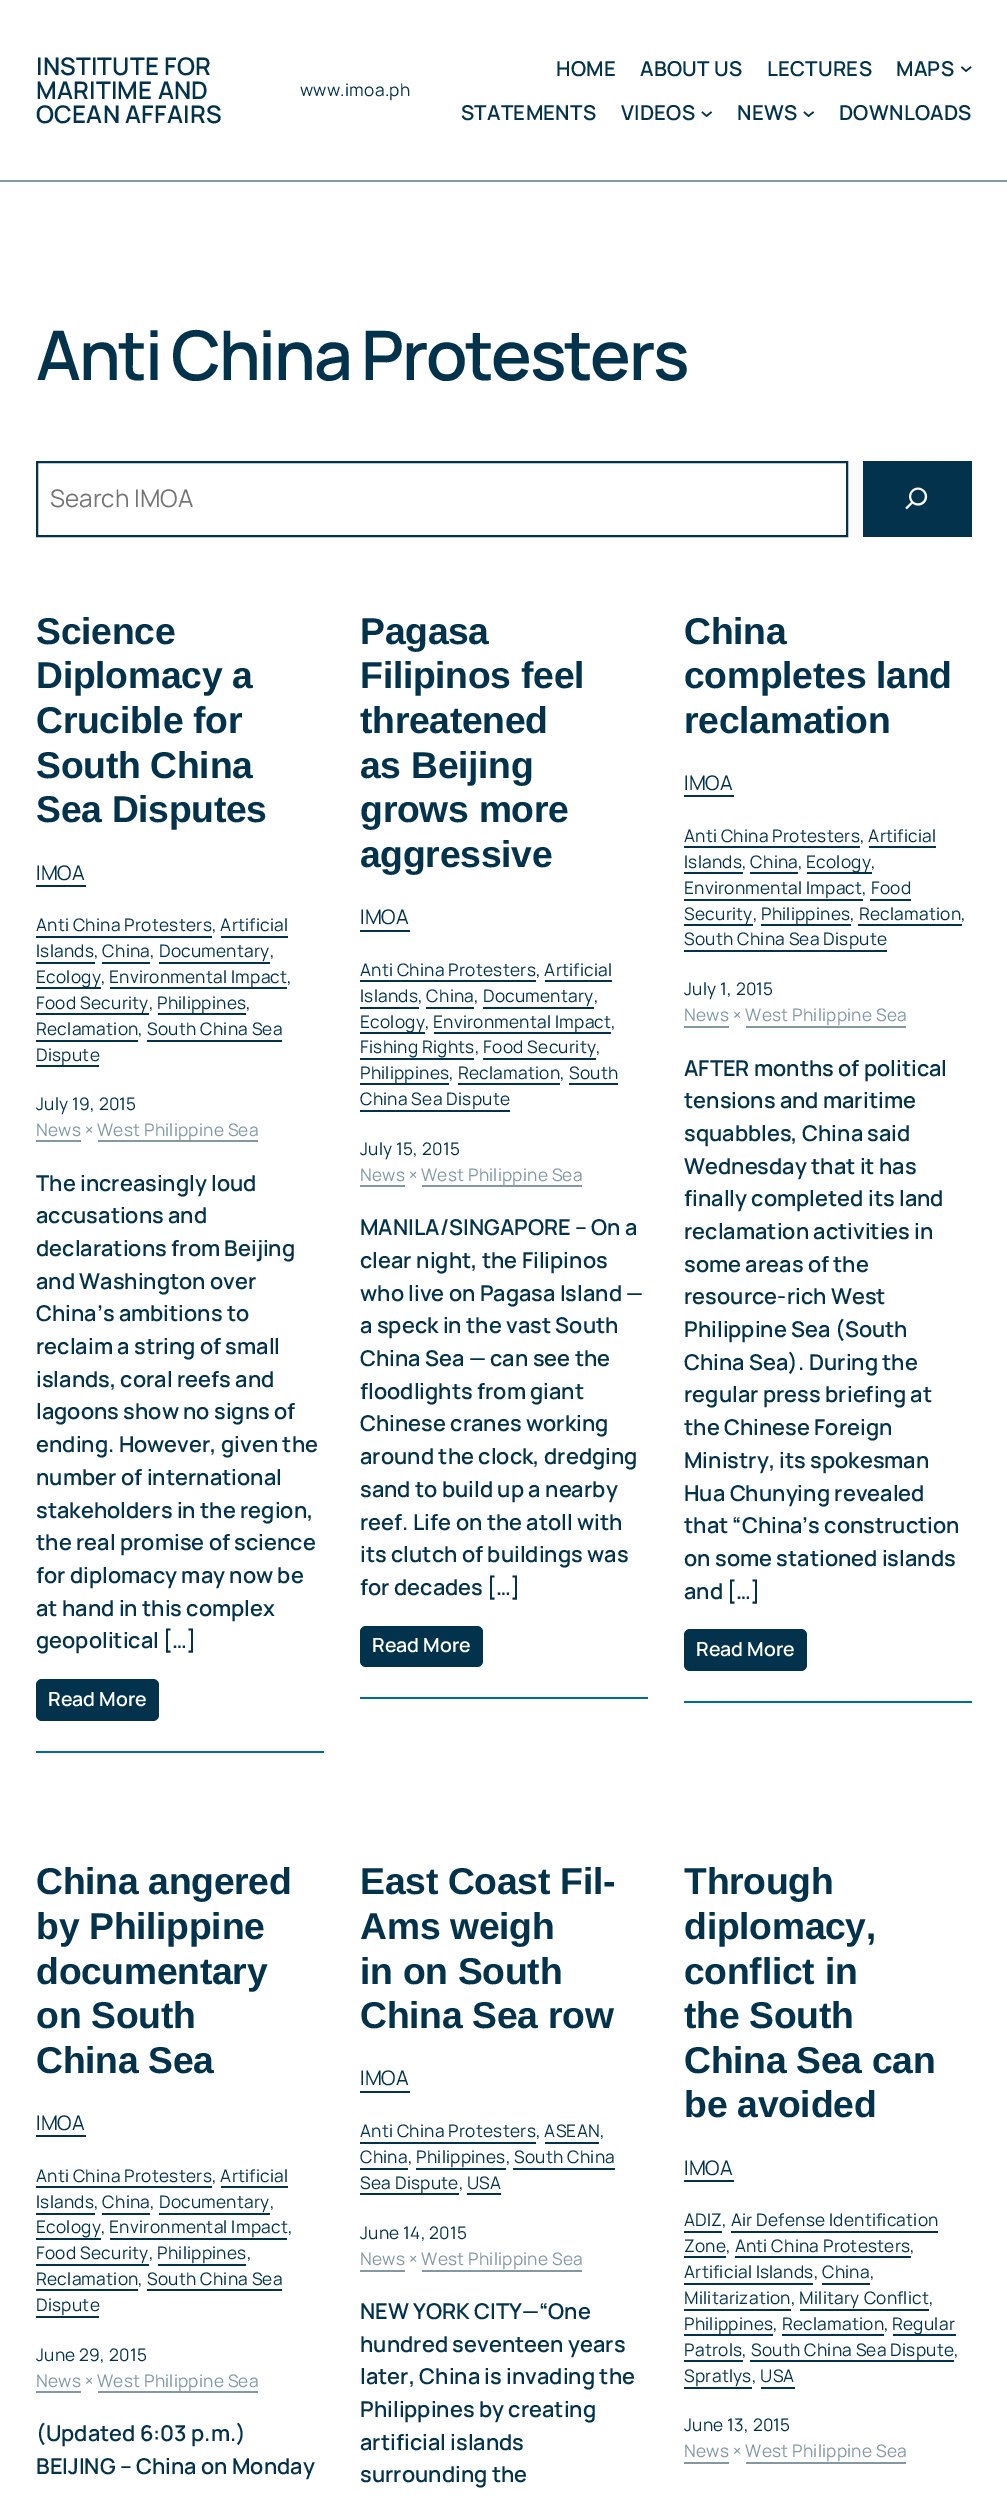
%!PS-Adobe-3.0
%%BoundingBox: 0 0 1007 2499
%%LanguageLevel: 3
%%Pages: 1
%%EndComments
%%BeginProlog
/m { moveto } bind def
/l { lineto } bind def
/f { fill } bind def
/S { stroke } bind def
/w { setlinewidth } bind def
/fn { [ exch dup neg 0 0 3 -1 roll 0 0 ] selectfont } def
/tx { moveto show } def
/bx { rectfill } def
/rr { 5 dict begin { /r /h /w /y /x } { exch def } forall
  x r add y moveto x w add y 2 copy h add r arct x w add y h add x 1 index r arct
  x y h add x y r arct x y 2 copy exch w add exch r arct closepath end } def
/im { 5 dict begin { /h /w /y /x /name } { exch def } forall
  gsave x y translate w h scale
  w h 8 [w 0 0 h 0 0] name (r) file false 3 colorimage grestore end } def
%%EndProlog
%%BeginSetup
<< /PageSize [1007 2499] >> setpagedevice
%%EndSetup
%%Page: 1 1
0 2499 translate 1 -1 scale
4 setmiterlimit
1 setgray
0 0 1007 2499 bx
0.51 0.6 0.643 setrgbcolor
0 180 1007 2 bx
/Manrope-SemiBold 24.25 fn
0.012 0.2 0.298 setrgbcolor
36 75 m 0.25 0 (INSTITUTE FOR) ashow
36 99 m 0.25 0 (MARITIME AND) ashow
36 123 m 0.25 0 (OCEAN AFFAIRS) ashow
/Manrope-Regular 17.25 fn
300 96 m 0.25 0 (www.imoa.ph) ashow
/Manrope-SemiBold 20.5 fn
556 76 m 0.25 0 (HOME) ashow
640 76 m 0.25 0 (ABOUT US) ashow
767 76 m 0.25 0 (LECTURES) ashow
896 76 m 0.25 0 (MAPS) ashow
1.5 w
961.5 67 m 966 71 l 971 67 l S
461 120 m 0.25 0 (STATEMENTS) ashow
621 120 m 0.25 0 (VIDEOS) ashow
702 112 m 706.5 116 l 711.5 112 l S
737 120 m 0.25 0 (NEWS) ashow
804 112 m 808.5 116 l 813.5 112 l S
839 120 m 0.25 0 (DOWNLOADS) ashow
/Manrope-SemiBold 68.25 fn
36 380 m -2.4 0 (Anti China Protesters) ashow
0.98 setgray
848 461 15 76 bx
0.012 0.2 0.298 setrgbcolor
2 w
37 462 810 74 rectstroke
/Manrope-Regular 24.25 fn
0.459 setgray
(Search IMOA) 50 507 tx
0.012 0.2 0.298 setrgbcolor
863 461 109 76 bx
(image0.raw) 905 487 23 23 im
/LiberationSans-Bold 37.25 fn
36 644 m -0.25 0 (Science) ashow
36 688 m -0.25 0 (Diplomacy a) ashow
36 733 m -0.25 0 (Crucible for) ashow
36 778 m -0.25 0 (South China) ashow
36 822 m -0.25 0 (Sea Disputes) ashow
/Manrope-Regular 20 fn
(IMOA) 36 880 tx
36 885 50 2 bx
/Manrope-Regular 17.25 fn
36 931 m 0.25 0 (Anti China Protesters, Artificial) ashow
36 936 176 2 bx
36 957 m 0.25 0 (Islands, China, Documentary,) ashow
221 936 67 2 bx
36 962 59 2 bx
102 962 48 2 bx
159 962 111 2 bx
36 987 65 2 bx
36 983 m 0.25 0 (Ecology,) ashow
110 987 177 2 bx
109 983 m 0.25 0 (Environmental Impact,) ashow
36 1013 113 2 bx
36 1009 m 0.25 0 (Food Security,) ashow
158 1013 88 2 bx
157 1009 m 0.25 0 (Philippines,) ashow
36 1035 m 0.25 0 (Reclamation, South China Sea) ashow
36 1040 102 2 bx
36 1065 63 2 bx
36 1061 m 0.25 0 (Dispute) ashow
147 1040 135 2 bx
36 1110 m 0.25 0 (July 19, 2015) ashow
0.51 0.6 0.643 setrgbcolor
36 1136 m 0.25 0 (News ×) ashow
36 1140 45 2 bx
98 1140 160 2 bx
97 1136 m 0.25 0 (West Philippine Sea) ashow
/Manrope-SemiBold 21.75 fn
0.012 0.2 0.298 setrgbcolor
(The increasingly loud) 36 1191 tx
(accusations and) 36 1223 tx
(declarations from Beijing) 36 1256 tx
(and Washington over) 36 1289 tx
(China’s ambitions to) 36 1321 tx
(reclaim a string of small) 36 1354 tx
(islands, coral reefs and) 36 1387 tx
(lagoons show no signs of) 36 1419 tx
(ending. However, given the) 36 1452 tx
(number of international) 36 1485 tx
(stakeholders in the region,) 36 1518 tx
(the real promise of science) 36 1550 tx
(for diplomacy may now be) 36 1583 tx
(at hand in this complex) 36 1616 tx
(geopolitical […]) 36 1648 tx
0 0.42 0.631 setrgbcolor
36 1751 288 2 bx
0.012 0.2 0.298 setrgbcolor
36 1679 123 42 6 rr f
/Manrope-SemiBold 19.5 fn
1 setgray
(Read More) 48 1706 tx
/LiberationSans-Bold 37.25 fn
0.012 0.2 0.298 setrgbcolor
360 644 m -0.25 0 (Pagasa) ashow
360 688 m -0.25 0 (Filipinos feel) ashow
360 733 m -0.25 0 (threatened) ashow
360 778 m -0.25 0 (as Beijing) ashow
360 822 m -0.25 0 (grows more) ashow
360 867 m -0.25 0 (aggressive) ashow
/Manrope-Regular 20 fn
(IMOA) 360 924 tx
360 930 50 2 bx
/Manrope-Regular 17.25 fn
360 976 m 0.25 0 (Anti China Protesters, Artificial) ashow
360 980 176 2 bx
360 1002 m 0.25 0 (Islands, China, Documentary,) ashow
545 980 67 2 bx
360 1007 59 2 bx
426 1007 48 2 bx
483 1007 111 2 bx
360 1032 65 2 bx
360 1028 m 0.25 0 (Ecology,) ashow
434 1032 177 2 bx
433 1028 m 0.25 0 (Environmental Impact,) ashow
360 1053 m 0.25 0 (Fishing Rights, Food Security,) ashow
360 1058 114 2 bx
483 1058 113 2 bx
360 1083 89 2 bx
360 1079 m 0.25 0 (Philippines, Reclamation, South) ashow
458 1083 102 2 bx
360 1105 m 0.25 0 (China Sea Dispute) ashow
569 1083 49 2 bx
360 1110 150 2 bx
360 1155 m 0.25 0 (July 15, 2015) ashow
0.51 0.6 0.643 setrgbcolor
360 1181 m 0.25 0 (News ×) ashow
360 1185 45 2 bx
422 1185 160 2 bx
421 1181 m 0.25 0 (West Philippine Sea) ashow
/Manrope-SemiBold 21.75 fn
0.012 0.2 0.298 setrgbcolor
(MANILA/SINGAPORE – On a) 360 1235 tx
(clear night, the Filipinos) 360 1268 tx
(who live on Pagasa Island —) 360 1301 tx
(a speck in the vast South) 360 1333 tx
(China Sea — can see the) 360 1366 tx
(floodlights from giant) 360 1399 tx
(Chinese cranes working) 360 1431 tx
(around the clock, dredging) 360 1464 tx
(sand to build up a nearby) 360 1497 tx
(reef. Life on the atoll with) 360 1530 tx
(its clutch of buildings was) 360 1562 tx
(for decades […]) 360 1595 tx
0 0.42 0.631 setrgbcolor
360 1697 288 2 bx
0.012 0.2 0.298 setrgbcolor
360 1626 123 41 6 rr f
/Manrope-SemiBold 19.5 fn
1 setgray
(Read More) 372 1652 tx
/LiberationSans-Bold 37.25 fn
0.012 0.2 0.298 setrgbcolor
684 644 m -0.25 0 (China) ashow
684 688 m -0.25 0 (completes land) ashow
684 733 m -0.25 0 (reclamation) ashow
/Manrope-Regular 20 fn
(IMOA) 684 790 tx
684 795 50 2 bx
/Manrope-Regular 17.25 fn
684 842 m 0.25 0 (Anti China Protesters, Artificial) ashow
684 846 176 2 bx
684 868 m 0.25 0 (Islands, China,) ashow
869 846 67 2 bx
684 872 59 2 bx
807 872 65 2 bx
806 868 m 0.25 0 (Ecology,) ashow
750 872 48 2 bx
684 894 m 0.25 0 (Environmental Impact, Food) ashow
684 899 179 2 bx
684 924 69 2 bx
684 920 m 0.25 0 (Security,) ashow
870 899 41 2 bx
761 924 90 2 bx
761 920 m 0.25 0 (Philippines, Reclamation,) ashow
858 924 104 2 bx
684 945 m 0.25 0 (South China Sea Dispute) ashow
684 950 203 2 bx
684 995 m 0.25 0 (July 1, 2015) ashow
0.51 0.6 0.643 setrgbcolor
684 1021 m 0.25 0 (News × West Philippine Sea) ashow
684 1026 45 2 bx
746 1026 160 2 bx
/Manrope-SemiBold 21.75 fn
0.012 0.2 0.298 setrgbcolor
(AFTER months of political) 684 1076 tx
(tensions and maritime) 684 1108 tx
(squabbles, China said) 684 1141 tx
(Wednesday that it has) 684 1174 tx
(finally completed its land) 684 1206 tx
(reclamation activities in) 684 1239 tx
(some areas of the) 684 1272 tx
(resource-rich West) 684 1304 tx
(Philippine Sea \(South) 684 1337 tx
(China Sea\). During the) 684 1370 tx
(regular press briefing at) 684 1402 tx
(the Chinese Foreign) 684 1435 tx
(Ministry, its spokesman) 684 1468 tx
(Hua Chunying revealed) 684 1501 tx
(that “China’s construction) 684 1533 tx
(on some stationed islands) 684 1566 tx
(and […]) 684 1599 tx
0 0.42 0.631 setrgbcolor
684 1701 288 2 bx
0.012 0.2 0.298 setrgbcolor
684 1629 123 42 6 rr f
/Manrope-SemiBold 19.5 fn
1 setgray
(Read More) 696 1656 tx
/LiberationSans-Bold 37.25 fn
0.012 0.2 0.298 setrgbcolor
36 1894 m -0.25 0 (China angered) ashow
36 1939 m -0.25 0 (by Philippine) ashow
36 1984 m -0.25 0 (documentary) ashow
36 2028 m -0.25 0 (on South) ashow
36 2073 m -0.25 0 (China Sea) ashow
/Manrope-Regular 20 fn
(IMOA) 36 2130 tx
36 2135 50 2 bx
/Manrope-Regular 17.25 fn
36 2182 m 0.25 0 (Anti China Protesters, Artificial) ashow
36 2186 176 2 bx
36 2208 m 0.25 0 (Islands, China, Documentary,) ashow
221 2186 67 2 bx
36 2213 59 2 bx
102 2213 48 2 bx
159 2213 111 2 bx
36 2233 m 0.25 0 (Ecology, Environmental Impact,) ashow
36 2238 65 2 bx
110 2238 177 2 bx
36 2259 m 0.25 0 (Food Security, Philippines,) ashow
36 2264 113 2 bx
158 2264 88 2 bx
36 2285 m 0.25 0 (Reclamation, South China Sea) ashow
36 2289 102 2 bx
36 2311 m 0.25 0 (Dispute) ashow
147 2289 135 2 bx
36 2316 63 2 bx
36 2361 m 0.25 0 (June 29, 2015) ashow
0.51 0.6 0.643 setrgbcolor
36 2387 m 0.25 0 (News ×) ashow
36 2391 45 2 bx
98 2391 160 2 bx
97 2387 m 0.25 0 (West Philippine Sea) ashow
/Manrope-SemiBold 21.75 fn
0.012 0.2 0.298 setrgbcolor
(\(Updated 6:03 p.m.\)) 36 2441 tx
(BEIJING – China on Monday) 36 2474 tx
/LiberationSans-Bold 37.25 fn
360 1894 m -0.25 0 (East Coast Fil-) ashow
360 1939 m -0.25 0 (Ams weigh) ashow
360 1984 m -0.25 0 (in on South) ashow
360 2028 m -0.25 0 (China Sea row) ashow
/Manrope-Regular 20 fn
(IMOA) 360 2085 tx
360 2091 50 2 bx
/Manrope-Regular 17.25 fn
360 2137 m 0.25 0 (Anti China Protesters, ASEAN,) ashow
360 2142 176 2 bx
545 2142 54 2 bx
360 2163 m 0.25 0 (China, Philippines, South China) ashow
360 2168 48 2 bx
416 2168 90 2 bx
360 2193 99 2 bx
360 2189 m 0.25 0 (Sea Dispute, USA) ashow
513 2168 102 2 bx
467 2193 34 2 bx
360 2239 m 0.25 0 (June 14, 2015) ashow
0.51 0.6 0.643 setrgbcolor
360 2265 m 0.25 0 (News × West Philippine Sea) ashow
360 2270 45 2 bx
422 2270 160 2 bx
/Manrope-SemiBold 21.75 fn
0.012 0.2 0.298 setrgbcolor
(NEW YORK CITY—“One) 360 2319 tx
(hundred seventeen years) 360 2352 tx
(later, China is invading the) 360 2384 tx
(Philippines by creating) 360 2417 tx
(artificial islands) 360 2450 tx
(surrounding the) 360 2482 tx
/LiberationSans-Bold 37.25 fn
684 1894 m -0.25 0 (Through) ashow
684 1939 m -0.25 0 (diplomacy,) ashow
684 1984 m -0.25 0 (conflict in) ashow
684 2028 m -0.25 0 (the South) ashow
684 2073 m -0.25 0 (China Sea can) ashow
684 2117 m -0.25 0 (be avoided) ashow
/Manrope-Regular 20 fn
(IMOA) 684 2175 tx
684 2180 50 2 bx
/Manrope-Regular 17.25 fn
684 2226 m 0.25 0 (ADIZ, Air Defense Identification) ashow
684 2231 38 2 bx
684 2252 m 0.25 0 (Zone, Anti China Protesters,) ashow
731 2231 207 2 bx
684 2256 42 2 bx
735 2256 176 2 bx
684 2278 m 0.25 0 (Artificial Islands, China,) ashow
684 2283 129 2 bx
822 2283 48 2 bx
684 2304 m 0.25 0 (Militarization, Military Conflict,) ashow
684 2309 107 2 bx
800 2309 129 2 bx
684 2334 89 2 bx
684 2330 m 0.25 0 (Philippines, Reclamation,) ashow
893 2334 63 2 bx
892 2330 m 0.25 0 (Regular) ashow
782 2334 102 2 bx
684 2356 m 0.25 0 (Patrols,) ashow
684 2360 59 2 bx
750 2360 204 2 bx
751 2356 m 0.25 0 (South China Sea Dispute,) ashow
684 2382 m 0.25 0 (Spratlys, USA) ashow
684 2387 68 2 bx
761 2387 34 2 bx
684 2431 m 0.25 0 (June 13, 2015) ashow
0.51 0.6 0.643 setrgbcolor
684 2457 m 0.25 0 (News × West Philippine Sea) ashow
684 2462 45 2 bx
746 2462 160 2 bx
showpage
%%EOF
